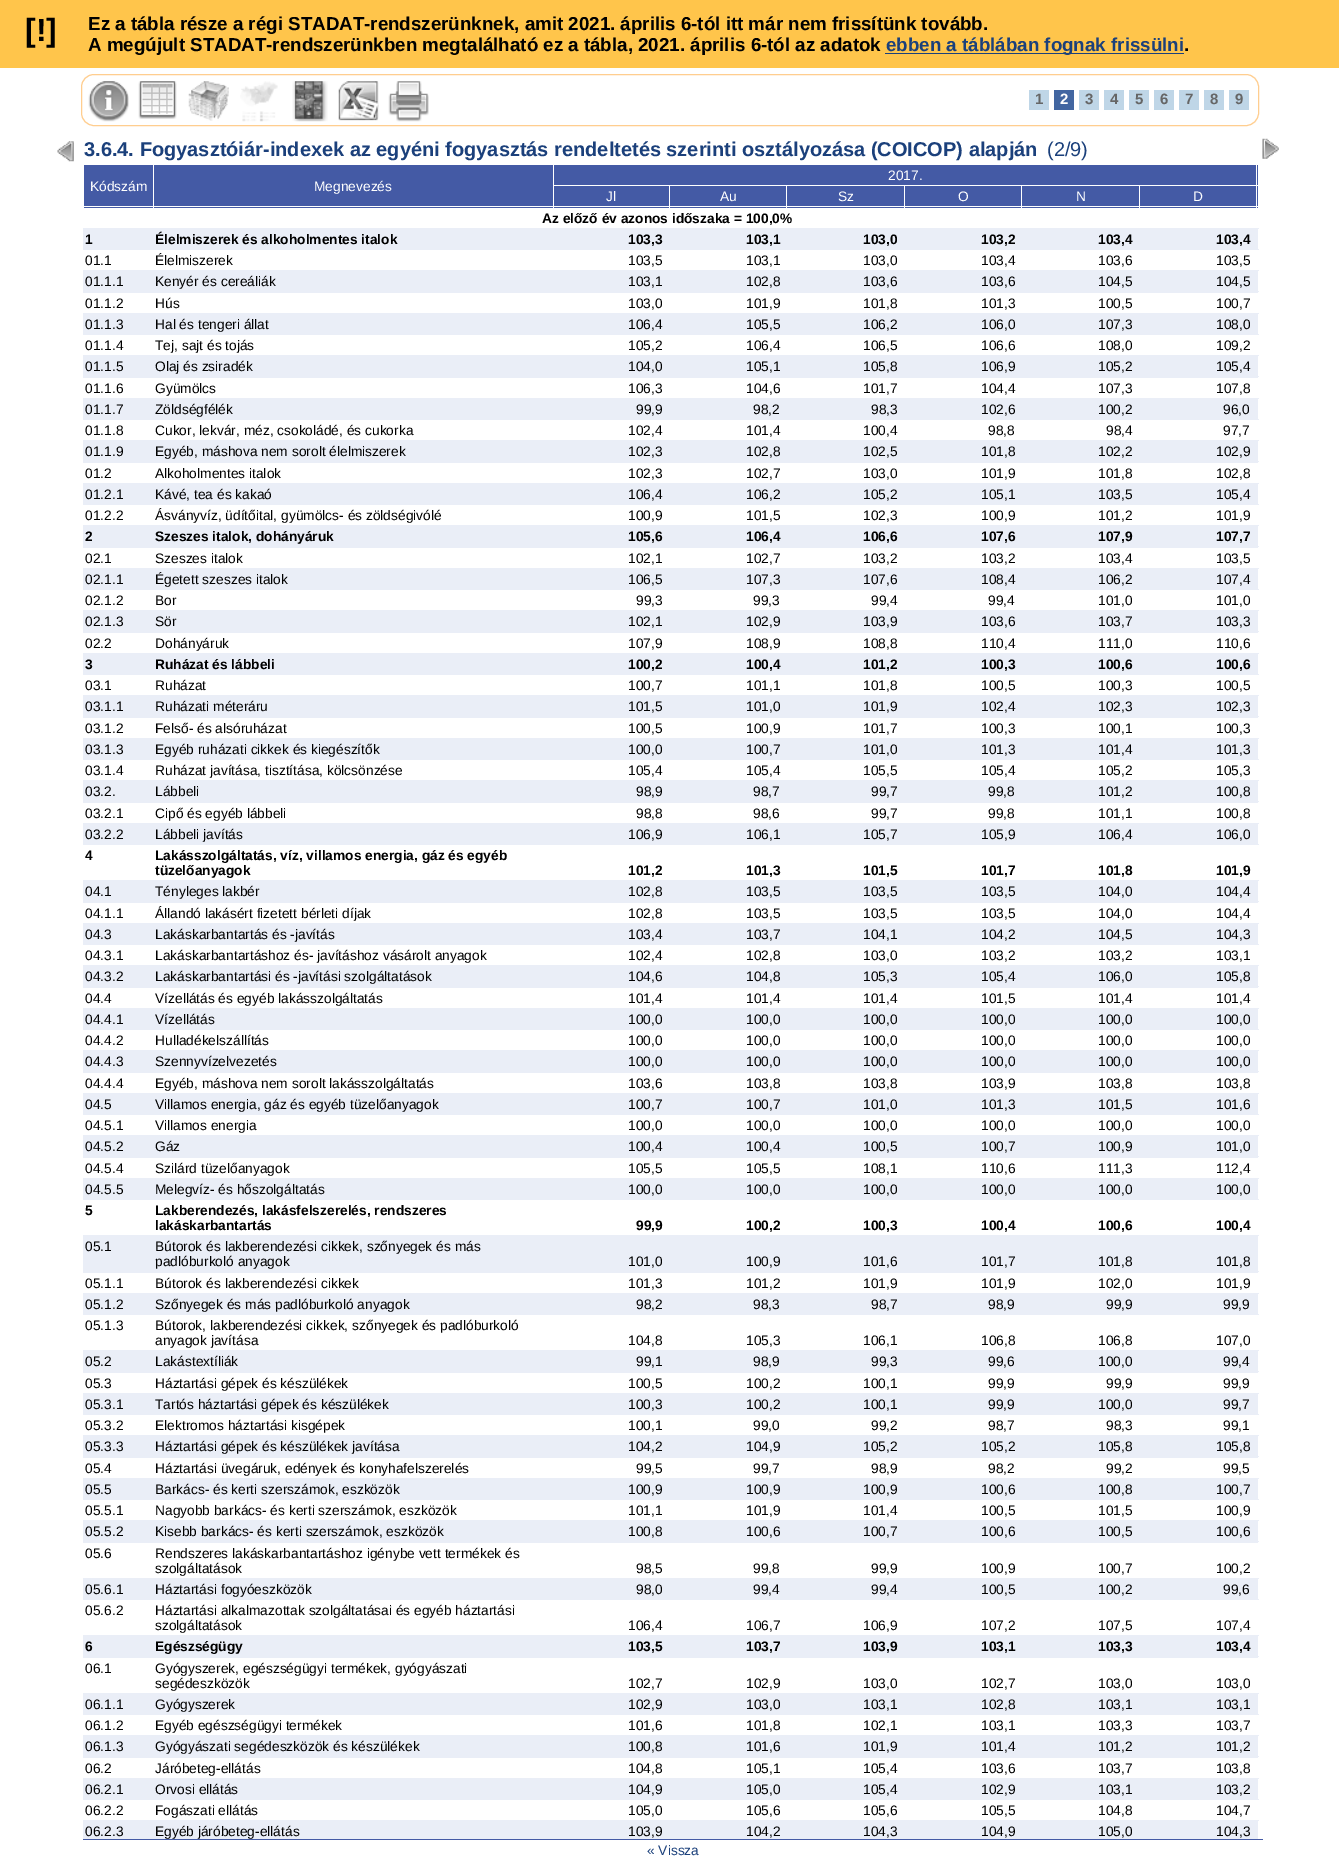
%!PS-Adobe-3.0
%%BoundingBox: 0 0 1339 1860
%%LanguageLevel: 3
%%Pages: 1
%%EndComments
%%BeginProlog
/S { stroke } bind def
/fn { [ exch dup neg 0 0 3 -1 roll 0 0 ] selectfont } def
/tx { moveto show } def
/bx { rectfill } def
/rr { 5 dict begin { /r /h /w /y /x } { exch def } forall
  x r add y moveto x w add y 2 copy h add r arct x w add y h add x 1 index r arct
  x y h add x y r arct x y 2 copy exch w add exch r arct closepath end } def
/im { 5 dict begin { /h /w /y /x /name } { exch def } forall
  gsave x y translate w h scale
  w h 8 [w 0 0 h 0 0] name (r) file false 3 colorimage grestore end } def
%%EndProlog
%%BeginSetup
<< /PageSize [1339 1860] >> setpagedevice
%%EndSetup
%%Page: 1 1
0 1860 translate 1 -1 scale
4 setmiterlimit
1 setgray
0 0 1339 1860 bx
1 0.773 0.294 setrgbcolor
0 0 1339 68 bx
/LiberationSans-Bold 32 fn
0 setgray
([!]) 25 41 tx
/LiberationSans-Bold 18.75 fn
(Ez a tábla része a régi STADAT-rendszerünknek, amit 2021. április 6-tól itt már nem frissítünk tovább.) 88 30 tx
(A megújult STADAT-rendszerünkben megtalálható ez a tábla, 2021. április 6-tól az adatok) 88 51 tx
0.106 0.251 0.482 setrgbcolor
885 53 299 1 bx
(ebben a táblában fognak frissülni) 886 51 tx
0 setgray
(.) 1184 51 tx
1 0.808 0.561 setrgbcolor
81.5 74.5 1177 51 12.5 rr S
(image0.raw) 88 81 41 41 im
(image1.raw) 138 81 39 38 im
(image2.raw) 188 81 41 40 im
(image3.raw) 240 81 38 41 im
(image4.raw) 292 81 36 41 im
(image5.raw) 338 81 41 40 im
(image6.raw) 388 81 41 41 im
0.749 0.839 0.906 setrgbcolor
1029 90 20 20 bx
/LiberationSans-Bold 15 fn
0.4 setgray
(1) 1035 104 tx
0.259 0.4 0.631 setrgbcolor
1054 90 20 20 bx
1 setgray
(2) 1060 104 tx
0.749 0.839 0.906 setrgbcolor
1079 90 20 20 bx
0.4 setgray
(3) 1085 104 tx
0.749 0.839 0.906 setrgbcolor
1104 90 20 20 bx
0.4 setgray
(4) 1110 104 tx
0.749 0.839 0.906 setrgbcolor
1129 90 20 20 bx
0.4 setgray
(5) 1135 104 tx
0.749 0.839 0.906 setrgbcolor
1154 90 20 20 bx
0.4 setgray
(6) 1160 104 tx
0.749 0.839 0.906 setrgbcolor
1179 90 20 20 bx
0.4 setgray
(7) 1185 104 tx
0.749 0.839 0.906 setrgbcolor
1204 90 20 20 bx
0.4 setgray
(8) 1210 104 tx
0.749 0.839 0.906 setrgbcolor
1229 90 20 20 bx
0.4 setgray
(9) 1235 104 tx
(image7.raw) 57 141 17 21 im
/LiberationSans-Bold 20 fn
0.106 0.251 0.482 setrgbcolor
(3.6.4. Fogyasztóiár-indexek az egyéni fogyasztás rendeltetés szerinti osztályozása \(COICOP\) alapján) 84 156 tx
/LiberationSans-Regular 20 fn
(\(2/9\)) 1047 156 tx
(image8.raw) 1262 138 17 21 im
0.267 0.353 0.647 setrgbcolor
554 165 704 20 bx
/LiberationSans-Regular 13.75 fn
1 setgray
(2017.) 888 180 tx
0.267 0.353 0.647 setrgbcolor
84 165 69 43 bx
1 setgray
(Kódszám) 90 191 tx
0.267 0.353 0.647 setrgbcolor
154 165 399 43 bx
1 setgray
(Megnevezés) 314 191 tx
0.267 0.353 0.647 setrgbcolor
554 186 115 22 bx
1 setgray
(Jl) 606 201 tx
0.267 0.353 0.647 setrgbcolor
670 186 234 22 bx
905 186 234 22 bx
1140 186 118 22 bx
1 setgray
1256 164 1 44 bx
1021 206 237 1 bx
1021 185 1 23 bx
786 206 237 1 bx
786 185 1 23 bx
83 206 705 1 bx
(Au) 720 201 tx
(Sz) 838 201 tx
(O) 958 201 tx
(N) 1076 201 tx
(D) 1193 201 tx
0.918 0.933 0.969 setrgbcolor
83 228 1176 1 bx
/LiberationSans-Bold 13.75 fn
0 setgray
(Az előző év azonos időszaka = 100,0%) 542 223 tx
0.918 0.933 0.969 setrgbcolor
83 229 1057 21 bx
0 setgray
(1) 85 244 tx
(Élelmiszerek és alkoholmentes italok) 155 244 tx
(103,3) 628 244 tx
(103,1) 746 244 tx
(103,0) 863 244 tx
(103,2) 981 244 tx
(103,4) 1098 244 tx
0.918 0.933 0.969 setrgbcolor
1140 229 118 20 bx
1139 249 120 1 bx
0 setgray
(103,4) 1216 244 tx
/LiberationSans-Regular 13.75 fn
(01.1) 85 265 tx
(Élelmiszerek) 155 265 tx
(103,5) 628 265 tx
(103,1) 746 265 tx
(103,0) 863 265 tx
(103,4) 981 265 tx
(103,6) 1098 265 tx
0.918 0.933 0.969 setrgbcolor
83 270 1176 1 bx
0 setgray
(103,5) 1216 265 tx
0.918 0.933 0.969 setrgbcolor
83 271 1175 22 bx
0 setgray
(01.1.1) 85 286 tx
(Kenyér és cereáliák) 155 286 tx
(103,1) 628 286 tx
(102,8) 746 286 tx
(103,6) 863 286 tx
(103,6) 981 286 tx
(104,5) 1098 286 tx
0.918 0.933 0.969 setrgbcolor
1258 291 1 1 bx
0 setgray
(104,5) 1216 286 tx
(01.1.2) 85 308 tx
(Hús) 155 308 tx
(103,0) 628 308 tx
(101,9) 746 308 tx
(101,8) 863 308 tx
(101,3) 981 308 tx
(100,5) 1098 308 tx
0.918 0.933 0.969 setrgbcolor
83 313 1176 1 bx
0 setgray
(100,7) 1216 308 tx
0.918 0.933 0.969 setrgbcolor
83 314 1057 21 bx
0 setgray
(01.1.3) 85 329 tx
(Hal és tengeri állat) 155 329 tx
(106,4) 628 329 tx
(105,5) 746 329 tx
(106,2) 863 329 tx
(106,0) 981 329 tx
(107,3) 1098 329 tx
0.918 0.933 0.969 setrgbcolor
1140 314 118 20 bx
1139 334 120 1 bx
0 setgray
(108,0) 1216 329 tx
(01.1.4) 85 350 tx
(Tej, sajt és tojás) 155 350 tx
(105,2) 628 350 tx
(106,4) 746 350 tx
(106,5) 863 350 tx
(106,6) 981 350 tx
(108,0) 1098 350 tx
0.918 0.933 0.969 setrgbcolor
83 355 1176 1 bx
0 setgray
(109,2) 1216 350 tx
0.918 0.933 0.969 setrgbcolor
83 356 1175 22 bx
0 setgray
(01.1.5) 85 371 tx
(Olaj és zsiradék) 155 371 tx
(104,0) 628 371 tx
(105,1) 746 371 tx
(105,8) 863 371 tx
(106,9) 981 371 tx
(105,2) 1098 371 tx
0.918 0.933 0.969 setrgbcolor
1258 376 1 1 bx
0 setgray
(105,4) 1216 371 tx
(01.1.6) 85 393 tx
(Gyümölcs) 155 393 tx
(106,3) 628 393 tx
(104,6) 746 393 tx
(101,7) 863 393 tx
(104,4) 981 393 tx
(107,3) 1098 393 tx
0.918 0.933 0.969 setrgbcolor
83 398 1176 1 bx
0 setgray
(107,8) 1216 393 tx
0.918 0.933 0.969 setrgbcolor
83 399 1057 21 bx
0 setgray
(01.1.7) 85 414 tx
(Zöldségfélék) 155 414 tx
(99,9) 636 414 tx
(98,2) 753 414 tx
(98,3) 871 414 tx
(102,6) 981 414 tx
(100,2) 1098 414 tx
0.918 0.933 0.969 setrgbcolor
1140 399 118 20 bx
1139 419 120 1 bx
0 setgray
(96,0) 1223 414 tx
(01.1.8) 85 435 tx
(Cukor, lekvár, méz, csokoládé, és cukorka) 155 435 tx
(102,4) 628 435 tx
(101,4) 746 435 tx
(100,4) 863 435 tx
(98,8) 988 435 tx
(98,4) 1106 435 tx
0.918 0.933 0.969 setrgbcolor
83 440 1176 1 bx
0 setgray
(97,7) 1223 435 tx
0.918 0.933 0.969 setrgbcolor
83 441 1175 22 bx
0 setgray
(01.1.9) 85 456 tx
(Egyéb, máshova nem sorolt élelmiszerek) 155 456 tx
(102,3) 628 456 tx
(102,8) 746 456 tx
(102,5) 863 456 tx
(101,8) 981 456 tx
(102,2) 1098 456 tx
0.918 0.933 0.969 setrgbcolor
1258 461 1 1 bx
0 setgray
(102,9) 1216 456 tx
(01.2) 85 478 tx
(Alkoholmentes italok) 155 478 tx
(102,3) 628 478 tx
(102,7) 746 478 tx
(103,0) 863 478 tx
(101,9) 981 478 tx
(101,8) 1098 478 tx
0.918 0.933 0.969 setrgbcolor
83 483 1176 1 bx
0 setgray
(102,8) 1216 478 tx
0.918 0.933 0.969 setrgbcolor
83 484 1057 21 bx
0 setgray
(01.2.1) 85 499 tx
(Kávé, tea és kakaó) 155 499 tx
(106,4) 628 499 tx
(106,2) 746 499 tx
(105,2) 863 499 tx
(105,1) 981 499 tx
(103,5) 1098 499 tx
0.918 0.933 0.969 setrgbcolor
1140 484 118 20 bx
1139 504 120 1 bx
0 setgray
(105,4) 1216 499 tx
(01.2.2) 85 520 tx
(Ásványvíz, üdítőital, gyümölcs- és zöldségivólé) 155 520 tx
(100,9) 628 520 tx
(101,5) 746 520 tx
(102,3) 863 520 tx
(100,9) 981 520 tx
(101,2) 1098 520 tx
0.918 0.933 0.969 setrgbcolor
83 525 1176 1 bx
0 setgray
(101,9) 1216 520 tx
0.918 0.933 0.969 setrgbcolor
83 526 1175 22 bx
/LiberationSans-Bold 13.75 fn
0 setgray
(2) 85 541 tx
(Szeszes italok, dohányáruk) 155 541 tx
(105,6) 628 541 tx
(106,4) 746 541 tx
(106,6) 863 541 tx
(107,6) 981 541 tx
(107,9) 1098 541 tx
0.918 0.933 0.969 setrgbcolor
1258 546 1 1 bx
0 setgray
(107,7) 1216 541 tx
/LiberationSans-Regular 13.75 fn
(02.1) 85 563 tx
(Szeszes italok) 155 563 tx
(102,1) 628 563 tx
(102,7) 746 563 tx
(103,2) 863 563 tx
(103,2) 981 563 tx
(103,4) 1098 563 tx
0.918 0.933 0.969 setrgbcolor
83 568 1176 1 bx
0 setgray
(103,5) 1216 563 tx
0.918 0.933 0.969 setrgbcolor
83 569 1057 21 bx
0 setgray
(02.1.1) 85 584 tx
(Égetett szeszes italok) 155 584 tx
(106,5) 628 584 tx
(107,3) 746 584 tx
(107,6) 863 584 tx
(108,4) 981 584 tx
(106,2) 1098 584 tx
0.918 0.933 0.969 setrgbcolor
1140 569 118 20 bx
1139 589 120 1 bx
0 setgray
(107,4) 1216 584 tx
(02.1.2) 85 605 tx
(Bor) 155 605 tx
(99,3) 636 605 tx
(99,3) 753 605 tx
(99,4) 871 605 tx
(99,4) 988 605 tx
(101,0) 1098 605 tx
0.918 0.933 0.969 setrgbcolor
83 610 1176 1 bx
0 setgray
(101,0) 1216 605 tx
0.918 0.933 0.969 setrgbcolor
83 611 1175 22 bx
0 setgray
(02.1.3) 85 626 tx
(Sör) 155 626 tx
(102,1) 628 626 tx
(102,9) 746 626 tx
(103,9) 863 626 tx
(103,6) 981 626 tx
(103,7) 1098 626 tx
0.918 0.933 0.969 setrgbcolor
1258 631 1 1 bx
0 setgray
(103,3) 1216 626 tx
(02.2) 85 648 tx
(Dohányáruk) 155 648 tx
(107,9) 628 648 tx
(108,9) 746 648 tx
(108,8) 863 648 tx
(110,4) 981 648 tx
(111,0) 1098 648 tx
0.918 0.933 0.969 setrgbcolor
83 653 1176 1 bx
0 setgray
(110,6) 1216 648 tx
0.918 0.933 0.969 setrgbcolor
83 654 1057 21 bx
/LiberationSans-Bold 13.75 fn
0 setgray
(3) 85 669 tx
(Ruházat és lábbeli) 155 669 tx
(100,2) 628 669 tx
(100,4) 746 669 tx
(101,2) 863 669 tx
(100,3) 981 669 tx
(100,6) 1098 669 tx
0.918 0.933 0.969 setrgbcolor
1140 654 118 20 bx
1139 674 120 1 bx
0 setgray
(100,6) 1216 669 tx
/LiberationSans-Regular 13.75 fn
(03.1) 85 690 tx
(Ruházat) 155 690 tx
(100,7) 628 690 tx
(101,1) 746 690 tx
(101,8) 863 690 tx
(100,5) 981 690 tx
(100,3) 1098 690 tx
0.918 0.933 0.969 setrgbcolor
83 695 1176 1 bx
0 setgray
(100,5) 1216 690 tx
0.918 0.933 0.969 setrgbcolor
83 696 1175 22 bx
0 setgray
(03.1.1) 85 711 tx
(Ruházati méteráru) 155 711 tx
(101,5) 628 711 tx
(101,0) 746 711 tx
(101,9) 863 711 tx
(102,4) 981 711 tx
(102,3) 1098 711 tx
0.918 0.933 0.969 setrgbcolor
1258 716 1 1 bx
0 setgray
(102,3) 1216 711 tx
(03.1.2) 85 733 tx
(Felső- és alsóruházat) 155 733 tx
(100,5) 628 733 tx
(100,9) 746 733 tx
(101,7) 863 733 tx
(100,3) 981 733 tx
(100,1) 1098 733 tx
0.918 0.933 0.969 setrgbcolor
83 738 1176 1 bx
0 setgray
(100,3) 1216 733 tx
0.918 0.933 0.969 setrgbcolor
83 739 1057 21 bx
0 setgray
(03.1.3) 85 754 tx
(Egyéb ruházati cikkek és kiegészítők) 155 754 tx
(100,0) 628 754 tx
(100,7) 746 754 tx
(101,0) 863 754 tx
(101,3) 981 754 tx
(101,4) 1098 754 tx
0.918 0.933 0.969 setrgbcolor
1140 739 118 20 bx
1139 759 120 1 bx
0 setgray
(101,3) 1216 754 tx
(03.1.4) 85 775 tx
(Ruházat javítása, tisztítása, kölcsönzése) 155 775 tx
(105,4) 628 775 tx
(105,4) 746 775 tx
(105,5) 863 775 tx
(105,4) 981 775 tx
(105,2) 1098 775 tx
0.918 0.933 0.969 setrgbcolor
83 780 1176 1 bx
0 setgray
(105,3) 1216 775 tx
0.918 0.933 0.969 setrgbcolor
83 781 1175 22 bx
0 setgray
(03.2.) 85 796 tx
(Lábbeli) 155 796 tx
(98,9) 636 796 tx
(98,7) 753 796 tx
(99,7) 871 796 tx
(99,8) 988 796 tx
(101,2) 1098 796 tx
0.918 0.933 0.969 setrgbcolor
1258 801 1 1 bx
0 setgray
(100,8) 1216 796 tx
(03.2.1) 85 818 tx
(Cipő és egyéb lábbeli) 155 818 tx
(98,8) 636 818 tx
(98,6) 753 818 tx
(99,7) 871 818 tx
(99,8) 988 818 tx
(101,1) 1098 818 tx
0.918 0.933 0.969 setrgbcolor
83 823 1176 1 bx
0 setgray
(100,8) 1216 818 tx
0.918 0.933 0.969 setrgbcolor
83 824 1057 21 bx
0 setgray
(03.2.2) 85 839 tx
(Lábbeli javítás) 155 839 tx
(106,9) 628 839 tx
(106,1) 746 839 tx
(105,7) 863 839 tx
(105,9) 981 839 tx
(106,4) 1098 839 tx
0.918 0.933 0.969 setrgbcolor
1140 824 118 20 bx
1139 844 120 1 bx
0 setgray
(106,0) 1216 839 tx
/LiberationSans-Bold 13.75 fn
(4) 85 860 tx
(Lakásszolgáltatás, víz, villamos energia, gáz és egyéb) 155 860 tx
(tüzelőanyagok) 155 875 tx
(101,2) 628 875 tx
(101,3) 746 875 tx
(101,5) 863 875 tx
(101,7) 981 875 tx
(101,8) 1098 875 tx
0.918 0.933 0.969 setrgbcolor
83 880 1176 1 bx
0 setgray
(101,9) 1216 875 tx
0.918 0.933 0.969 setrgbcolor
83 881 1175 22 bx
/LiberationSans-Regular 13.75 fn
0 setgray
(04.1) 85 896 tx
(Tényleges lakbér) 155 896 tx
(102,8) 628 896 tx
(103,5) 746 896 tx
(103,5) 863 896 tx
(103,5) 981 896 tx
(104,0) 1098 896 tx
0.918 0.933 0.969 setrgbcolor
1258 901 1 1 bx
0 setgray
(104,4) 1216 896 tx
(04.1.1) 85 918 tx
(Állandó lakásért fizetett bérleti díjak) 155 918 tx
(102,8) 628 918 tx
(103,5) 746 918 tx
(103,5) 863 918 tx
(103,5) 981 918 tx
(104,0) 1098 918 tx
0.918 0.933 0.969 setrgbcolor
83 923 1176 1 bx
0 setgray
(104,4) 1216 918 tx
0.918 0.933 0.969 setrgbcolor
83 924 1057 21 bx
0 setgray
(04.3) 85 939 tx
(Lakáskarbantartás és -javítás) 155 939 tx
(103,4) 628 939 tx
(103,7) 746 939 tx
(104,1) 863 939 tx
(104,2) 981 939 tx
(104,5) 1098 939 tx
0.918 0.933 0.969 setrgbcolor
1140 924 118 20 bx
1139 944 120 1 bx
0 setgray
(104,3) 1216 939 tx
(04.3.1) 85 960 tx
(Lakáskarbantartáshoz és- javításhoz vásárolt anyagok) 155 960 tx
(102,4) 628 960 tx
(102,8) 746 960 tx
(103,0) 863 960 tx
(103,2) 981 960 tx
(103,2) 1098 960 tx
0.918 0.933 0.969 setrgbcolor
83 965 1176 1 bx
0 setgray
(103,1) 1216 960 tx
0.918 0.933 0.969 setrgbcolor
83 966 1175 22 bx
0 setgray
(04.3.2) 85 981 tx
(Lakáskarbantartási és -javítási szolgáltatások) 155 981 tx
(104,6) 628 981 tx
(104,8) 746 981 tx
(105,3) 863 981 tx
(105,4) 981 981 tx
(106,0) 1098 981 tx
0.918 0.933 0.969 setrgbcolor
1258 986 1 1 bx
0 setgray
(105,8) 1216 981 tx
(04.4) 85 1003 tx
(Vízellátás és egyéb lakásszolgáltatás) 155 1003 tx
(101,4) 628 1003 tx
(101,4) 746 1003 tx
(101,4) 863 1003 tx
(101,5) 981 1003 tx
(101,4) 1098 1003 tx
0.918 0.933 0.969 setrgbcolor
83 1008 1176 1 bx
0 setgray
(101,4) 1216 1003 tx
0.918 0.933 0.969 setrgbcolor
83 1009 1057 21 bx
0 setgray
(04.4.1) 85 1024 tx
(Vízellátás) 155 1024 tx
(100,0) 628 1024 tx
(100,0) 746 1024 tx
(100,0) 863 1024 tx
(100,0) 981 1024 tx
(100,0) 1098 1024 tx
0.918 0.933 0.969 setrgbcolor
1140 1009 118 20 bx
1139 1029 120 1 bx
0 setgray
(100,0) 1216 1024 tx
(04.4.2) 85 1045 tx
(Hulladékelszállítás) 155 1045 tx
(100,0) 628 1045 tx
(100,0) 746 1045 tx
(100,0) 863 1045 tx
(100,0) 981 1045 tx
(100,0) 1098 1045 tx
0.918 0.933 0.969 setrgbcolor
83 1050 1176 1 bx
0 setgray
(100,0) 1216 1045 tx
0.918 0.933 0.969 setrgbcolor
83 1051 1175 22 bx
0 setgray
(04.4.3) 85 1066 tx
(Szennyvízelvezetés) 155 1066 tx
(100,0) 628 1066 tx
(100,0) 746 1066 tx
(100,0) 863 1066 tx
(100,0) 981 1066 tx
(100,0) 1098 1066 tx
0.918 0.933 0.969 setrgbcolor
1258 1071 1 1 bx
0 setgray
(100,0) 1216 1066 tx
(04.4.4) 85 1088 tx
(Egyéb, máshova nem sorolt lakásszolgáltatás) 155 1088 tx
(103,6) 628 1088 tx
(103,8) 746 1088 tx
(103,8) 863 1088 tx
(103,9) 981 1088 tx
(103,8) 1098 1088 tx
0.918 0.933 0.969 setrgbcolor
83 1093 1176 1 bx
0 setgray
(103,8) 1216 1088 tx
0.918 0.933 0.969 setrgbcolor
83 1094 1057 21 bx
0 setgray
(04.5) 85 1109 tx
(Villamos energia, gáz és egyéb tüzelőanyagok) 155 1109 tx
(100,7) 628 1109 tx
(100,7) 746 1109 tx
(101,0) 863 1109 tx
(101,3) 981 1109 tx
(101,5) 1098 1109 tx
0.918 0.933 0.969 setrgbcolor
1140 1094 118 20 bx
1139 1114 120 1 bx
0 setgray
(101,6) 1216 1109 tx
(04.5.1) 85 1130 tx
(Villamos energia) 155 1130 tx
(100,0) 628 1130 tx
(100,0) 746 1130 tx
(100,0) 863 1130 tx
(100,0) 981 1130 tx
(100,0) 1098 1130 tx
0.918 0.933 0.969 setrgbcolor
83 1135 1176 1 bx
0 setgray
(100,0) 1216 1130 tx
0.918 0.933 0.969 setrgbcolor
83 1136 1175 22 bx
0 setgray
(04.5.2) 85 1151 tx
(Gáz) 155 1151 tx
(100,4) 628 1151 tx
(100,4) 746 1151 tx
(100,5) 863 1151 tx
(100,7) 981 1151 tx
(100,9) 1098 1151 tx
0.918 0.933 0.969 setrgbcolor
1258 1156 1 1 bx
0 setgray
(101,0) 1216 1151 tx
(04.5.4) 85 1173 tx
(Szilárd tüzelőanyagok) 155 1173 tx
(105,5) 628 1173 tx
(105,5) 746 1173 tx
(108,1) 863 1173 tx
(110,6) 981 1173 tx
(111,3) 1098 1173 tx
0.918 0.933 0.969 setrgbcolor
83 1178 1176 1 bx
0 setgray
(112,4) 1216 1173 tx
0.918 0.933 0.969 setrgbcolor
83 1179 1057 21 bx
0 setgray
(04.5.5) 85 1194 tx
(Melegvíz- és hőszolgáltatás) 155 1194 tx
(100,0) 628 1194 tx
(100,0) 746 1194 tx
(100,0) 863 1194 tx
(100,0) 981 1194 tx
(100,0) 1098 1194 tx
0.918 0.933 0.969 setrgbcolor
1140 1179 118 20 bx
1139 1199 120 1 bx
0 setgray
(100,0) 1216 1194 tx
/LiberationSans-Bold 13.75 fn
(5) 85 1215 tx
(Lakberendezés, lakásfelszerelés, rendszeres) 155 1215 tx
(lakáskarbantartás) 155 1230 tx
(99,9) 636 1230 tx
(100,2) 746 1230 tx
(100,3) 863 1230 tx
(100,4) 981 1230 tx
(100,6) 1098 1230 tx
0.918 0.933 0.969 setrgbcolor
83 1235 1176 1 bx
0 setgray
(100,4) 1216 1230 tx
0.918 0.933 0.969 setrgbcolor
83 1236 1175 37 bx
/LiberationSans-Regular 13.75 fn
0 setgray
(05.1) 85 1251 tx
(Bútorok és lakberendezési cikkek, szőnyegek és más) 155 1251 tx
(padlóburkoló anyagok) 155 1266 tx
(101,0) 628 1266 tx
(100,9) 746 1266 tx
(101,6) 863 1266 tx
(101,7) 981 1266 tx
(101,8) 1098 1266 tx
0.918 0.933 0.969 setrgbcolor
1258 1271 1 1 bx
0 setgray
(101,8) 1216 1266 tx
(05.1.1) 85 1288 tx
(Bútorok és lakberendezési cikkek) 155 1288 tx
(101,3) 628 1288 tx
(101,2) 746 1288 tx
(101,9) 863 1288 tx
(101,9) 981 1288 tx
(102,0) 1098 1288 tx
0.918 0.933 0.969 setrgbcolor
83 1293 1176 1 bx
0 setgray
(101,9) 1216 1288 tx
0.918 0.933 0.969 setrgbcolor
83 1294 1057 21 bx
0 setgray
(05.1.2) 85 1309 tx
(Szőnyegek és más padlóburkoló anyagok) 155 1309 tx
(98,2) 636 1309 tx
(98,3) 753 1309 tx
(98,7) 871 1309 tx
(98,9) 988 1309 tx
(99,9) 1106 1309 tx
0.918 0.933 0.969 setrgbcolor
1140 1294 118 20 bx
1139 1314 120 1 bx
0 setgray
(99,9) 1223 1309 tx
(05.1.3) 85 1330 tx
(Bútorok, lakberendezési cikkek, szőnyegek és padlóburkoló) 155 1330 tx
(anyagok javítása) 155 1345 tx
(104,8) 628 1345 tx
(105,3) 746 1345 tx
(106,1) 863 1345 tx
(106,8) 981 1345 tx
(106,8) 1098 1345 tx
0.918 0.933 0.969 setrgbcolor
83 1350 1176 1 bx
0 setgray
(107,0) 1216 1345 tx
0.918 0.933 0.969 setrgbcolor
83 1351 1175 22 bx
0 setgray
(05.2) 85 1366 tx
(Lakástextíliák) 155 1366 tx
(99,1) 636 1366 tx
(98,9) 753 1366 tx
(99,3) 871 1366 tx
(99,6) 988 1366 tx
(100,0) 1098 1366 tx
0.918 0.933 0.969 setrgbcolor
1258 1371 1 1 bx
0 setgray
(99,4) 1223 1366 tx
(05.3) 85 1388 tx
(Háztartási gépek és készülékek) 155 1388 tx
(100,5) 628 1388 tx
(100,2) 746 1388 tx
(100,1) 863 1388 tx
(99,9) 988 1388 tx
(99,9) 1106 1388 tx
0.918 0.933 0.969 setrgbcolor
83 1393 1176 1 bx
0 setgray
(99,9) 1223 1388 tx
0.918 0.933 0.969 setrgbcolor
83 1394 1057 21 bx
0 setgray
(05.3.1) 85 1409 tx
(Tartós háztartási gépek és készülékek) 155 1409 tx
(100,3) 628 1409 tx
(100,2) 746 1409 tx
(100,1) 863 1409 tx
(99,9) 988 1409 tx
(100,0) 1098 1409 tx
0.918 0.933 0.969 setrgbcolor
1140 1394 118 20 bx
1139 1414 120 1 bx
0 setgray
(99,7) 1223 1409 tx
(05.3.2) 85 1430 tx
(Elektromos háztartási kisgépek) 155 1430 tx
(100,1) 628 1430 tx
(99,0) 753 1430 tx
(99,2) 871 1430 tx
(98,7) 988 1430 tx
(98,3) 1106 1430 tx
0.918 0.933 0.969 setrgbcolor
83 1435 1176 1 bx
0 setgray
(99,1) 1223 1430 tx
0.918 0.933 0.969 setrgbcolor
83 1436 1175 22 bx
0 setgray
(05.3.3) 85 1451 tx
(Háztartási gépek és készülékek javítása) 155 1451 tx
(104,2) 628 1451 tx
(104,9) 746 1451 tx
(105,2) 863 1451 tx
(105,2) 981 1451 tx
(105,8) 1098 1451 tx
0.918 0.933 0.969 setrgbcolor
1258 1456 1 1 bx
0 setgray
(105,8) 1216 1451 tx
(05.4) 85 1473 tx
(Háztartási üvegáruk, edények és konyhafelszerelés) 155 1473 tx
(99,5) 636 1473 tx
(99,7) 753 1473 tx
(98,9) 871 1473 tx
(98,2) 988 1473 tx
(99,2) 1106 1473 tx
0.918 0.933 0.969 setrgbcolor
83 1478 1176 1 bx
0 setgray
(99,5) 1223 1473 tx
0.918 0.933 0.969 setrgbcolor
83 1479 1057 21 bx
0 setgray
(05.5) 85 1494 tx
(Barkács- és kerti szerszámok, eszközök) 155 1494 tx
(100,9) 628 1494 tx
(100,9) 746 1494 tx
(100,9) 863 1494 tx
(100,6) 981 1494 tx
(100,8) 1098 1494 tx
0.918 0.933 0.969 setrgbcolor
1140 1479 118 20 bx
1139 1499 120 1 bx
0 setgray
(100,7) 1216 1494 tx
(05.5.1) 85 1515 tx
(Nagyobb barkács- és kerti szerszámok, eszközök) 155 1515 tx
(101,1) 628 1515 tx
(101,9) 746 1515 tx
(101,4) 863 1515 tx
(100,5) 981 1515 tx
(101,5) 1098 1515 tx
0.918 0.933 0.969 setrgbcolor
83 1520 1176 1 bx
0 setgray
(100,9) 1216 1515 tx
0.918 0.933 0.969 setrgbcolor
83 1521 1175 22 bx
0 setgray
(05.5.2) 85 1536 tx
(Kisebb barkács- és kerti szerszámok, eszközök) 155 1536 tx
(100,8) 628 1536 tx
(100,6) 746 1536 tx
(100,7) 863 1536 tx
(100,6) 981 1536 tx
(100,5) 1098 1536 tx
0.918 0.933 0.969 setrgbcolor
1258 1541 1 1 bx
0 setgray
(100,6) 1216 1536 tx
(05.6) 85 1558 tx
(Rendszeres lakáskarbantartáshoz igénybe vett termékek és) 155 1558 tx
(szolgáltatások) 155 1573 tx
(98,5) 636 1573 tx
(99,8) 753 1573 tx
(99,9) 871 1573 tx
(100,9) 981 1573 tx
(100,7) 1098 1573 tx
0.918 0.933 0.969 setrgbcolor
83 1578 1176 1 bx
0 setgray
(100,2) 1216 1573 tx
0.918 0.933 0.969 setrgbcolor
83 1579 1057 21 bx
0 setgray
(05.6.1) 85 1594 tx
(Háztartási fogyóeszközök) 155 1594 tx
(98,0) 636 1594 tx
(99,4) 753 1594 tx
(99,4) 871 1594 tx
(100,5) 981 1594 tx
(100,2) 1098 1594 tx
0.918 0.933 0.969 setrgbcolor
1140 1579 118 20 bx
1139 1599 120 1 bx
0 setgray
(99,6) 1223 1594 tx
(05.6.2) 85 1615 tx
(Háztartási alkalmazottak szolgáltatásai és egyéb háztartási) 155 1615 tx
(szolgáltatások) 155 1630 tx
(106,4) 628 1630 tx
(106,7) 746 1630 tx
(106,9) 863 1630 tx
(107,2) 981 1630 tx
(107,5) 1098 1630 tx
0.918 0.933 0.969 setrgbcolor
83 1635 1176 1 bx
0 setgray
(107,4) 1216 1630 tx
0.918 0.933 0.969 setrgbcolor
83 1636 1175 22 bx
/LiberationSans-Bold 13.75 fn
0 setgray
(6) 85 1651 tx
(Egészségügy) 155 1651 tx
(103,5) 628 1651 tx
(103,7) 746 1651 tx
(103,9) 863 1651 tx
(103,1) 981 1651 tx
(103,3) 1098 1651 tx
0.918 0.933 0.969 setrgbcolor
1258 1656 1 1 bx
0 setgray
(103,4) 1216 1651 tx
/LiberationSans-Regular 13.75 fn
(06.1) 85 1673 tx
(Gyógyszerek, egészségügyi termékek, gyógyászati) 155 1673 tx
(segédeszközök) 155 1688 tx
(102,7) 628 1688 tx
(102,9) 746 1688 tx
(103,0) 863 1688 tx
(102,7) 981 1688 tx
(103,0) 1098 1688 tx
0.918 0.933 0.969 setrgbcolor
83 1693 1176 1 bx
0 setgray
(103,0) 1216 1688 tx
0.918 0.933 0.969 setrgbcolor
83 1694 1057 21 bx
0 setgray
(06.1.1) 85 1709 tx
(Gyógyszerek) 155 1709 tx
(102,9) 628 1709 tx
(103,0) 746 1709 tx
(103,1) 863 1709 tx
(102,8) 981 1709 tx
(103,1) 1098 1709 tx
0.918 0.933 0.969 setrgbcolor
1140 1694 118 20 bx
1139 1714 120 1 bx
0 setgray
(103,1) 1216 1709 tx
(06.1.2) 85 1730 tx
(Egyéb egészségügyi termékek) 155 1730 tx
(101,6) 628 1730 tx
(101,8) 746 1730 tx
(102,1) 863 1730 tx
(103,1) 981 1730 tx
(103,3) 1098 1730 tx
0.918 0.933 0.969 setrgbcolor
83 1735 1176 1 bx
0 setgray
(103,7) 1216 1730 tx
0.918 0.933 0.969 setrgbcolor
83 1736 1175 22 bx
0 setgray
(06.1.3) 85 1751 tx
(Gyógyászati segédeszközök és készülékek) 155 1751 tx
(100,8) 628 1751 tx
(101,6) 746 1751 tx
(101,9) 863 1751 tx
(101,4) 981 1751 tx
(101,2) 1098 1751 tx
0.918 0.933 0.969 setrgbcolor
1258 1756 1 1 bx
0 setgray
(101,2) 1216 1751 tx
(06.2) 85 1773 tx
(Járóbeteg-ellátás) 155 1773 tx
(104,8) 628 1773 tx
(105,1) 746 1773 tx
(105,4) 863 1773 tx
(103,6) 981 1773 tx
(103,7) 1098 1773 tx
0.918 0.933 0.969 setrgbcolor
83 1778 1176 1 bx
0 setgray
(103,8) 1216 1773 tx
0.918 0.933 0.969 setrgbcolor
83 1779 1057 21 bx
0 setgray
(06.2.1) 85 1794 tx
(Orvosi ellátás) 155 1794 tx
(104,9) 628 1794 tx
(105,0) 746 1794 tx
(105,4) 863 1794 tx
(102,9) 981 1794 tx
(103,1) 1098 1794 tx
0.918 0.933 0.969 setrgbcolor
1140 1779 118 20 bx
1139 1799 120 1 bx
0 setgray
(103,2) 1216 1794 tx
(06.2.2) 85 1815 tx
(Fogászati ellátás) 155 1815 tx
(105,0) 628 1815 tx
(105,6) 746 1815 tx
(105,6) 863 1815 tx
(105,5) 981 1815 tx
(104,8) 1098 1815 tx
0.918 0.933 0.969 setrgbcolor
83 1820 1176 1 bx
0 setgray
(104,7) 1216 1815 tx
0.918 0.933 0.969 setrgbcolor
83 1821 1175 18 bx
0 setgray
(06.2.3) 85 1836 tx
(Egyéb járóbeteg-ellátás) 155 1836 tx
(103,9) 628 1836 tx
(104,2) 746 1836 tx
(104,3) 863 1836 tx
(104,9) 981 1836 tx
(105,0) 1098 1836 tx
(104,3) 1216 1836 tx
0.267 0.353 0.647 setrgbcolor
83 1839 1180 1 bx
0.106 0.251 0.482 setrgbcolor
(« Vissza) 647 1855 tx
showpage
%%EOF
